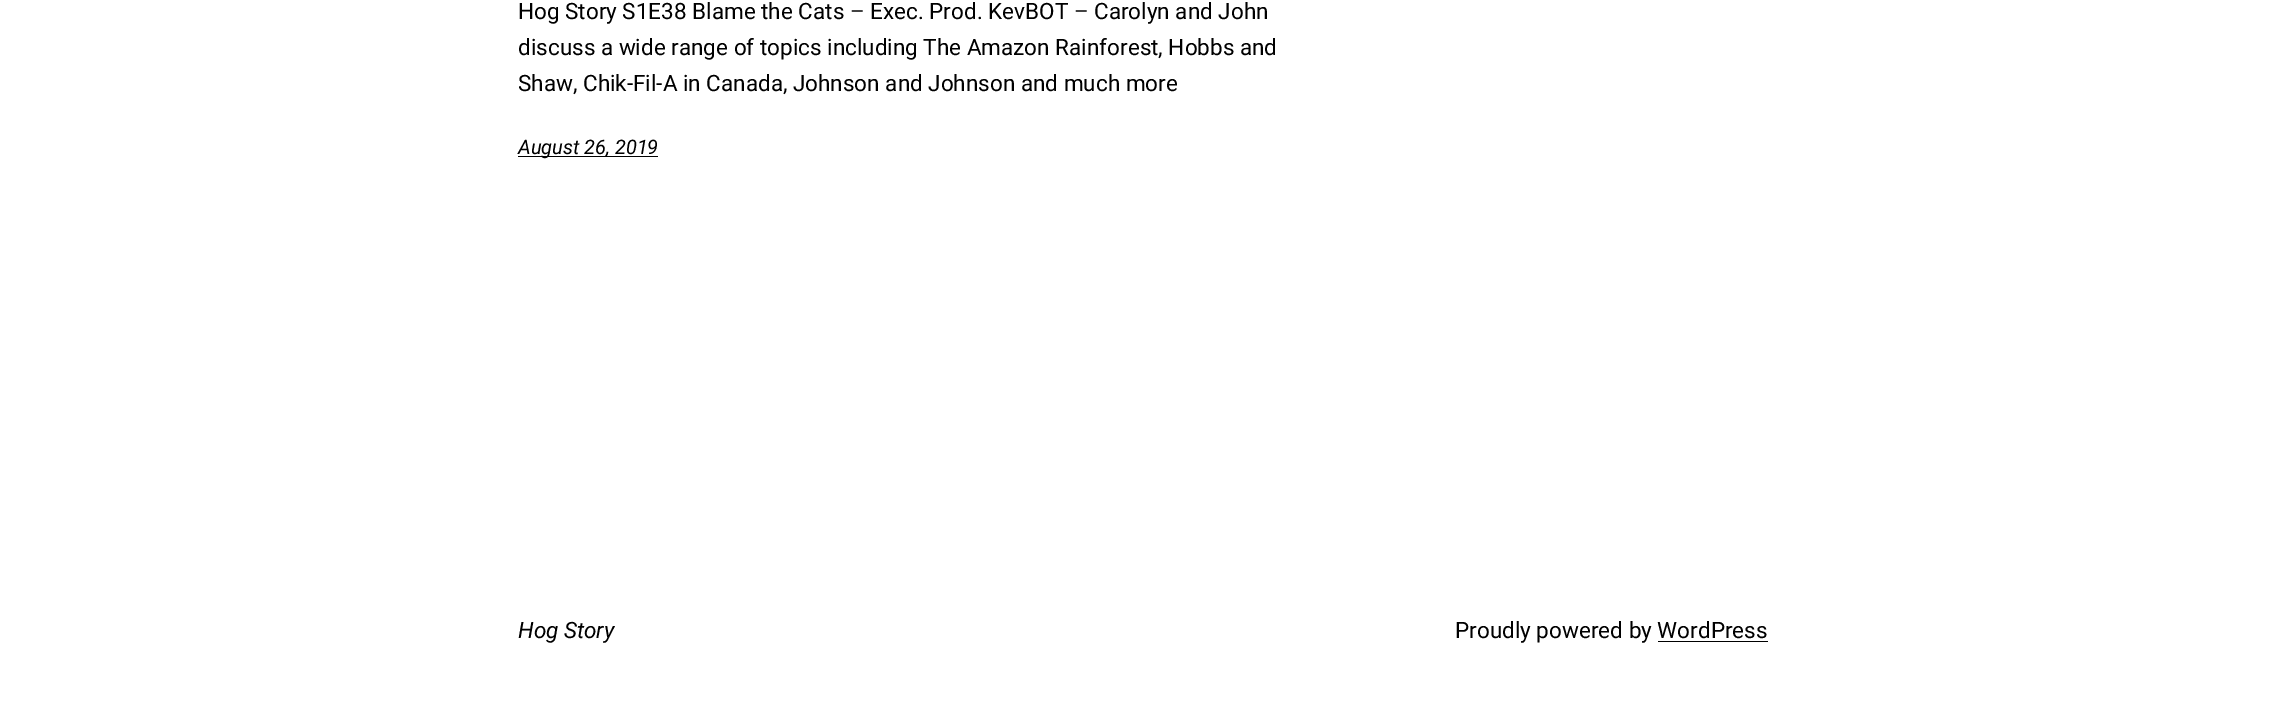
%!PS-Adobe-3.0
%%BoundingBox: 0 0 2285 728
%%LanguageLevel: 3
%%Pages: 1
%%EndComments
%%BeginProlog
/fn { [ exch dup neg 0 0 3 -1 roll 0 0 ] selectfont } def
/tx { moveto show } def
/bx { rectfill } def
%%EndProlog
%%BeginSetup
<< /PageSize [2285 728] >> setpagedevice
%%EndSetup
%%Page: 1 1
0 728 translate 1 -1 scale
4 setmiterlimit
1 setgray
0 0 2285 728 bx
/Roboto-Regular 22.5 fn
0 setgray
(Hog Story S1E38 Blame the Cats – Exec. Prod. KevBOT – Carolyn and John) 518 19 tx
(discuss a wide range of topics including The Amazon Rainforest, Hobbs and) 518 55 tx
(Shaw, Chik-Fil-A in Canada, Johnson and Johnson and much more) 518 91 tx
518 156 140 1 bx
/Roboto-Italic 20 fn
(August 26, 2019) 518 154 tx
/Roboto-Italic 22.5 fn
(Hog Story) 518 638 tx
/Roboto-Regular 22.5 fn
(Proudly powered by WordPress) 1455 638 tx
1658 641 110 1 bx
showpage
%%EOF
